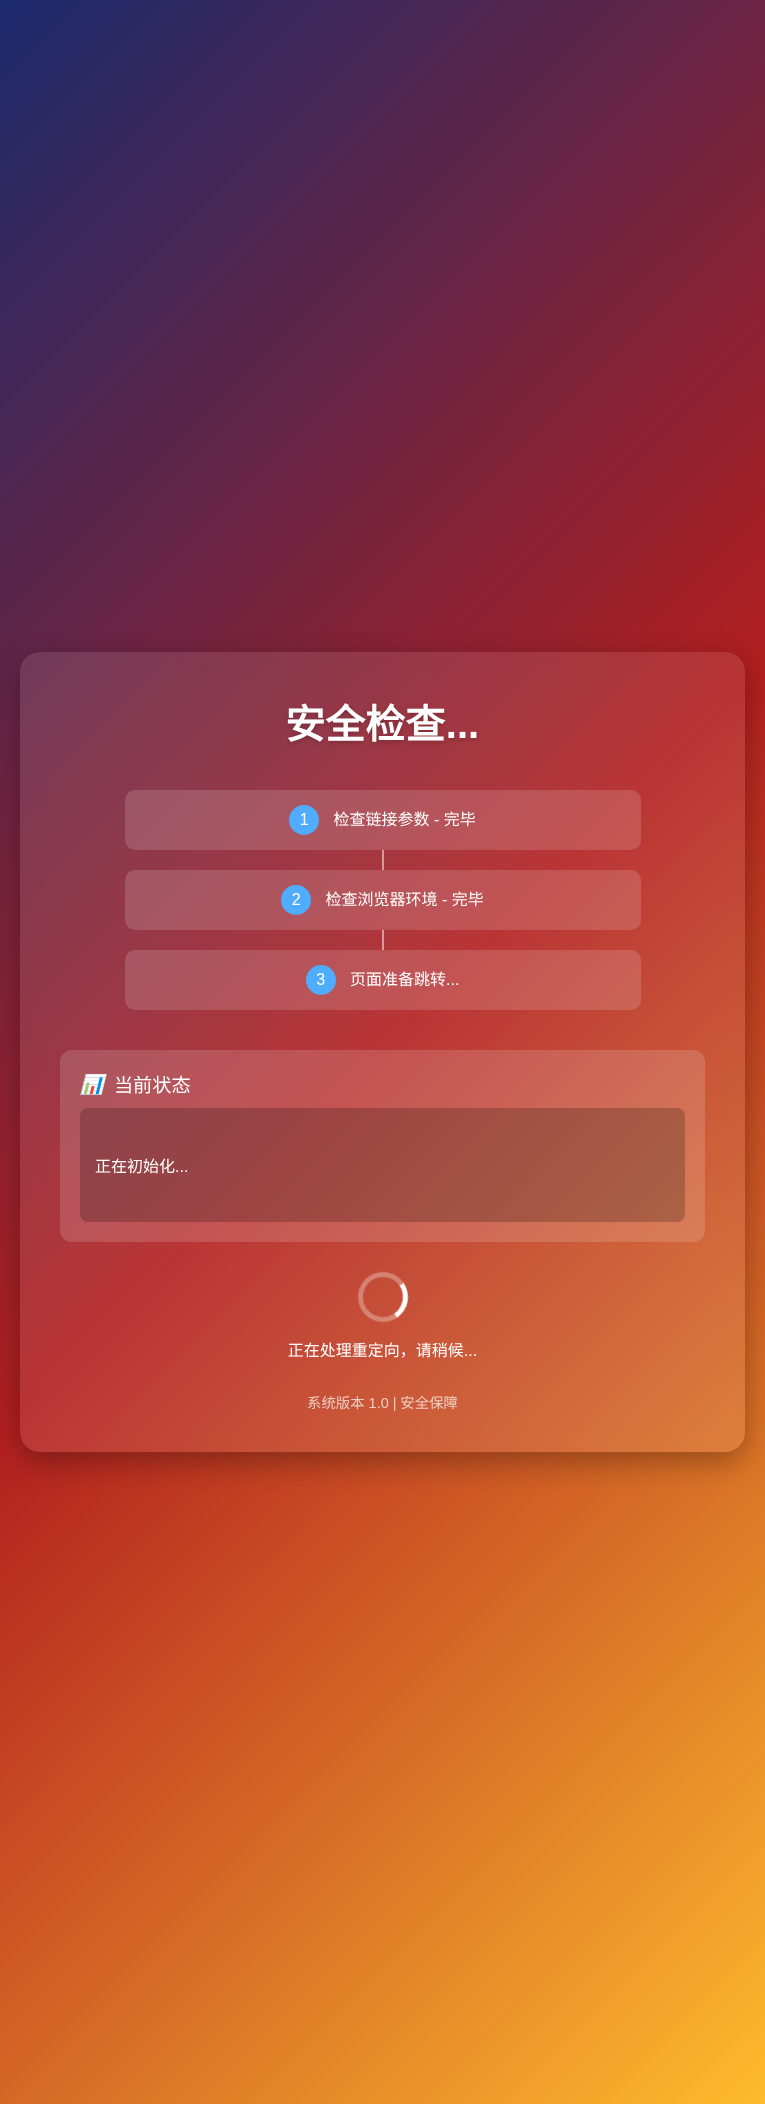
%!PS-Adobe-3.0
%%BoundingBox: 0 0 765 2104
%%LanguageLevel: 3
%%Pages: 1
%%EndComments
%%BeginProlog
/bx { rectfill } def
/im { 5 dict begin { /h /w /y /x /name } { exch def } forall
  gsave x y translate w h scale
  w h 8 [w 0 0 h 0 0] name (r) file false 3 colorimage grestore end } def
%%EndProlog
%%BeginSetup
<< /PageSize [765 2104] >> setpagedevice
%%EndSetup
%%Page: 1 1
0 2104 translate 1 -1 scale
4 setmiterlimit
1 setgray
0 0 765 2104 bx
(image0.raw) 0 0 765 2104 im
showpage
%%EOF
